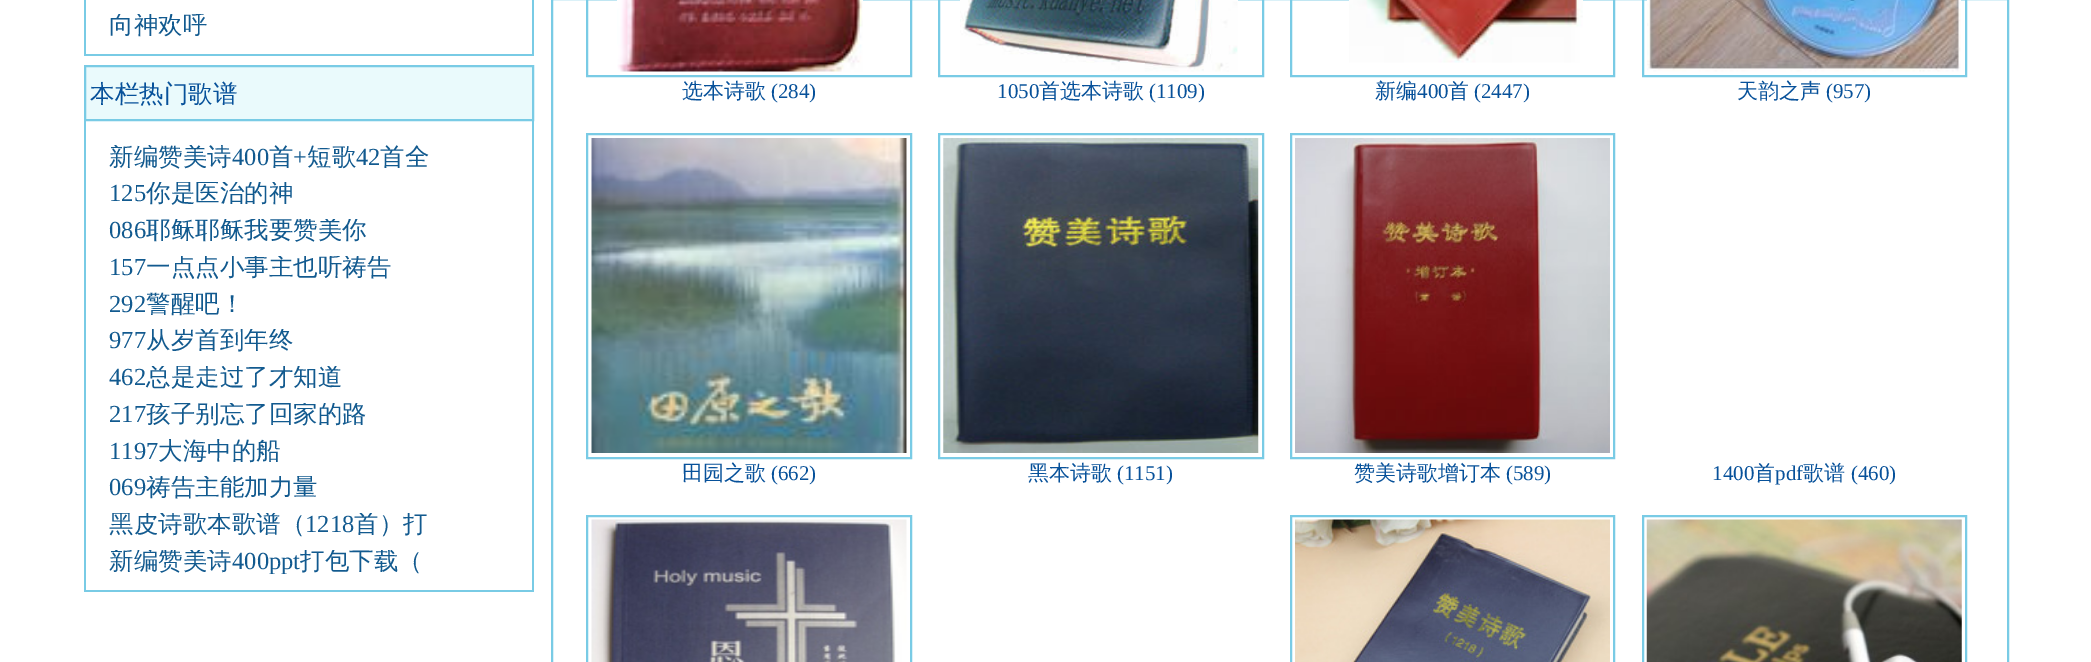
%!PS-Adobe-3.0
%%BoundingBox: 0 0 2091 662
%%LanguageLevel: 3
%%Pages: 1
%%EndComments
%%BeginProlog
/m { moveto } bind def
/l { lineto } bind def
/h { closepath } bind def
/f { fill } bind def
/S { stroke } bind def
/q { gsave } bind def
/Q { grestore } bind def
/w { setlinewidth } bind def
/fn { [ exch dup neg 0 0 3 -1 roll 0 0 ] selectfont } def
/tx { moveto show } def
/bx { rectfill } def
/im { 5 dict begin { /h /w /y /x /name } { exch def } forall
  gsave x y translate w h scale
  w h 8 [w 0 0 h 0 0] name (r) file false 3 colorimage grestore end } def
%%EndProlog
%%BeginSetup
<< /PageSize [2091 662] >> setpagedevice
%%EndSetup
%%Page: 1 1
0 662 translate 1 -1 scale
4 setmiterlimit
1 setgray
0 0 2091 662 bx
0.475 0.796 0.898 setrgbcolor
532 0 2 56 bx
84 54 450 2 bx
84 0 2 56 bx
q
86 14 420 25 rectclip
/WenQuanYiZenHei-Medium 24.5 fn
0.071 0.353 0.561 setrgbcolor
(向神欢呼) 109 33 tx
Q
0.918 0.98 0.988 setrgbcolor
85 66 m 533 66 l 533 120 l 85 120 l h q f Q
0.475 0.796 0.898 setrgbcolor
2 w
S
/WenQuanYiZenHei-Medium 24.5 fn
0.027 0.318 0.604 setrgbcolor
(本栏热门歌谱) 90 102 tx
0.475 0.796 0.898 setrgbcolor
532 121 2 471 bx
84 590 450 2 bx
84 121 2 471 bx
q
86 145 420 25 rectclip
0.071 0.353 0.561 setrgbcolor
(新编赞美诗) 109 165 tx
Q
/LiberationSerif-Regular 24.5 fn
0.071 0.353 0.561 setrgbcolor
(400) 232 165 tx
/WenQuanYiZenHei-Medium 24.5 fn
(首) 269 165 tx
/LiberationSerif-Regular 24.5 fn
(+) 293 165 tx
/WenQuanYiZenHei-Medium 24.5 fn
(短歌) 307 165 tx
/LiberationSerif-Regular 24.5 fn
(42) 356 165 tx
/WenQuanYiZenHei-Medium 24.5 fn
(首全) 380 165 tx
/LiberationSerif-Regular 24.5 fn
(125) 109 201 tx
q
86 182 420 25 rectclip
/WenQuanYiZenHei-Medium 24.5 fn
(你是医治的神) 146 201 tx
Q
(086) 109 238 tx
q
86 219 420 24 rectclip
/WenQuanYiZenHei-Medium 24.5 fn
(耶稣耶稣我要赞美你) 146 238 tx
Q
(157) 109 275 tx
q
86 256 420 24 rectclip
/WenQuanYiZenHei-Medium 24.5 fn
(一点点小事主也听祷告) 146 275 tx
Q
(292) 109 312 tx
/WenQuanYiZenHei-Medium 24.5 fn
(警醒吧！) 146 312 tx
/LiberationSerif-Regular 24.5 fn
(977) 109 348 tx
q
86 329 420 25 rectclip
/WenQuanYiZenHei-Medium 24.5 fn
(从岁首到年终) 146 348 tx
Q
(462) 109 385 tx
q
86 366 420 24 rectclip
/WenQuanYiZenHei-Medium 24.5 fn
(总是走过了才知道) 146 385 tx
Q
(217) 109 422 tx
q
86 403 420 24 rectclip
/WenQuanYiZenHei-Medium 24.5 fn
(孩子别忘了回家的路) 146 422 tx
Q
(1197) 109 459 tx
q
86 439 420 25 rectclip
/WenQuanYiZenHei-Medium 24.5 fn
(大海中的船) 158 459 tx
Q
(069) 109 495 tx
q
86 476 420 25 rectclip
/WenQuanYiZenHei-Medium 24.5 fn
(祷告主能加力量) 146 495 tx
Q
q
86 513 420 24 rectclip
/WenQuanYiZenHei-Medium 24.5 fn
(黑皮诗歌本歌谱（) 109 532 tx
Q
(1218) 305 532 tx
q
86 513 420 24 rectclip
/WenQuanYiZenHei-Medium 24.5 fn
(首）打) 354 532 tx
Q
q
86 550 420 24 rectclip
/WenQuanYiZenHei-Medium 24.5 fn
(新编赞美诗) 109 569 tx
/LiberationSerif-Regular 24.5 fn
(400ppt) 232 569 tx
/WenQuanYiZenHei-Medium 24.5 fn
(打包下载（) 300 569 tx
Q
0.475 0.796 0.898 setrgbcolor
552 -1 1456 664 rectstroke
587 -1 324 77 rectstroke
(image0.raw) 617 0 246 72 im
/WenQuanYiZenHei-Medium 21 fn
0.027 0.318 0.604 setrgbcolor
(选本诗歌) 682 98 tx
/LiberationSerif-Regular 21 fn
(\(284\)) 771 98 tx
0.475 0.796 0.898 setrgbcolor
939 -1 324 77 rectstroke
(image1.raw) 960 0 278 72 im
0.027 0.318 0.604 setrgbcolor
(1050) 997 98 tx
/WenQuanYiZenHei-Medium 21 fn
(首选本诗歌) 1039 98 tx
/LiberationSerif-Regular 21 fn
(\(1109\)) 1149 98 tx
0.475 0.796 0.898 setrgbcolor
1291 -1 323 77 rectstroke
(image2.raw) 1349 0 234 63 im
/WenQuanYiZenHei-Medium 21 fn
0.027 0.318 0.604 setrgbcolor
(新编) 1375 98 tx
/LiberationSerif-Regular 21 fn
(400) 1417 98 tx
/WenQuanYiZenHei-Medium 21 fn
(首) 1448 98 tx
/LiberationSerif-Regular 21 fn
(\(2447\)) 1474 98 tx
0.475 0.796 0.898 setrgbcolor
1643 -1 323 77 rectstroke
(image3.raw) 1647 0 314 72 im
/WenQuanYiZenHei-Medium 21 fn
0.027 0.318 0.604 setrgbcolor
(天韵之声) 1737 98 tx
/LiberationSerif-Regular 21 fn
(\(957\)) 1826 98 tx
0.475 0.796 0.898 setrgbcolor
587 134 324 324 rectstroke
(image4.raw) 591 138 316 315 im
/WenQuanYiZenHei-Medium 21 fn
0.027 0.318 0.604 setrgbcolor
(田园之歌) 682 480 tx
/LiberationSerif-Regular 21 fn
(\(662\)) 771 480 tx
0.475 0.796 0.898 setrgbcolor
939 134 324 324 rectstroke
(image5.raw) 943 138 316 315 im
/WenQuanYiZenHei-Medium 21 fn
0.027 0.318 0.604 setrgbcolor
(黑本诗歌) 1028 480 tx
/LiberationSerif-Regular 21 fn
(\(1151\)) 1117 480 tx
0.475 0.796 0.898 setrgbcolor
1291 134 323 324 rectstroke
(image6.raw) 1295 138 315 315 im
/WenQuanYiZenHei-Medium 21 fn
0.027 0.318 0.604 setrgbcolor
(赞美诗歌增订本) 1354 480 tx
/LiberationSerif-Regular 21 fn
(\(589\)) 1506 480 tx
(1400) 1712 480 tx
/WenQuanYiZenHei-Medium 21 fn
(首) 1754 480 tx
/LiberationSerif-Regular 21 fn
(pdf) 1775 480 tx
/WenQuanYiZenHei-Medium 21 fn
(歌谱) 1803 480 tx
/LiberationSerif-Regular 21 fn
(\(460\)) 1851 480 tx
0.475 0.796 0.898 setrgbcolor
587 516 324 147 rectstroke
(image7.raw) 591 519 316 143 im
1291 516 323 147 rectstroke
(image8.raw) 1295 519 315 143 im
1643 516 323 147 rectstroke
(image9.raw) 1646 519 316 143 im
showpage
%%EOF
